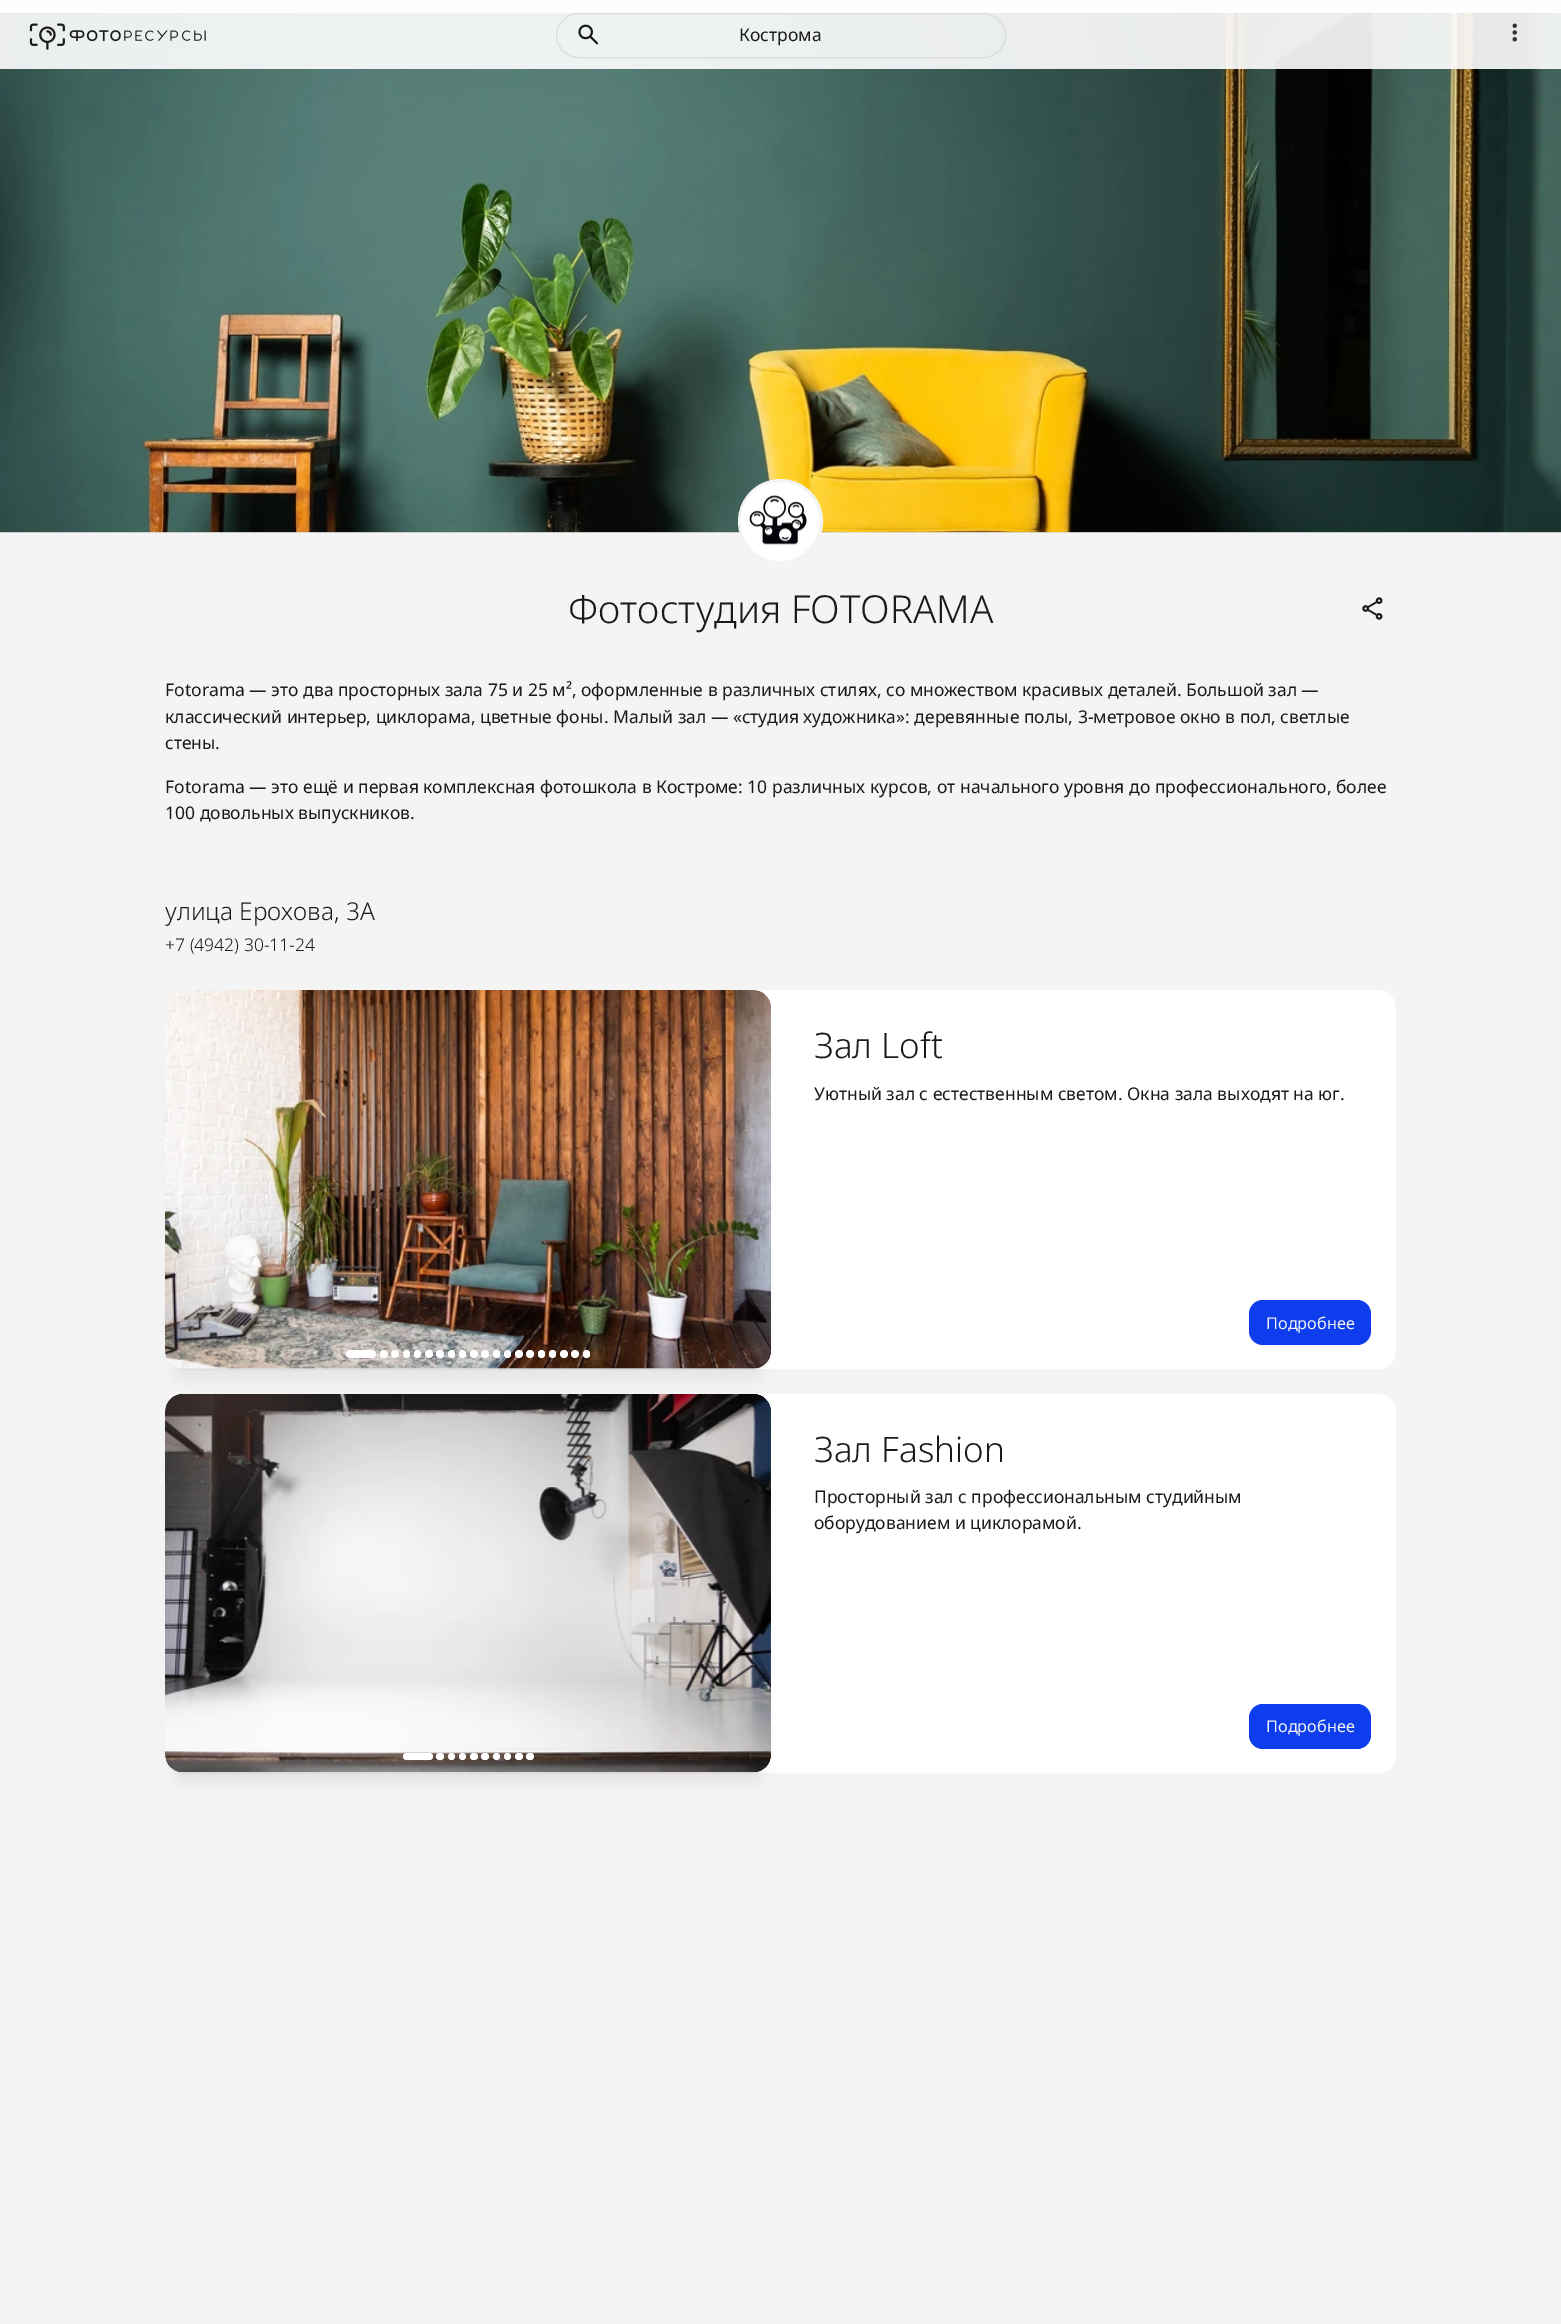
%!PS-Adobe-3.0
%%BoundingBox: 0 0 1561 2324
%%LanguageLevel: 3
%%Pages: 1
%%EndComments
%%BeginProlog
/f { fill } bind def
/S { stroke } bind def
/w { setlinewidth } bind def
/fn { [ exch dup neg 0 0 3 -1 roll 0 0 ] selectfont } def
/tx { moveto show } def
/bx { rectfill } def
/al { dup .setfillconstantalpha .setstrokeconstantalpha } def
/ci { newpath 0 360 arc closepath } def
/rr { 5 dict begin { /r /h /w /y /x } { exch def } forall
  x r add y moveto x w add y 2 copy h add r arct x w add y h add x 1 index r arct
  x y h add x y r arct x y 2 copy exch w add exch r arct closepath end } def
/sh { 12 dict begin { /a /b /q /h /w /y /x } { exch def } forall gsave /was 0 def
  9 -2 -9 { dup b mul 4 div /e exch def 1 sub .425 mul 2.718 exch exp 1 add a .99 .min exch div /now exch def
    1 1 now sub 1 was sub div sub al /was now def
    w h .min e 2 mul add 0 gt { x e sub y e sub w e 2 mul add h e 2 mul add
      q e add b .6 mul add w h .min 2 div e add .min 0 .max rr fill } if } for grestore end } def
/im { 5 dict begin { /h /w /y /x /name } { exch def } forall
  gsave x y translate w h scale
  w h 8 [w 0 0 h 0 0] name (r) file false 3 colorimage grestore end } def
%%EndProlog
%%BeginSetup
<< /PageSize [1561 2324] /PageUsesTransparency true >> setpagedevice
%%EndSetup
%%Page: 1 1
0 .pushpdf14devicefilter
0 2324 translate 1 -1 scale
4 setmiterlimit
0.957 setgray
0 0 1561 2324 bx
0.878 setgray
0 532 1561 1 bx
(image3.raw) 0 12 1561 521 im
0.9 al
1 setgray
0 0 1561 69 bx
1 al
(image0.raw) 29 23 177 27 im
0.859 setgray
556.5 13.5 449 44 22 rr S
(image1.raw) 578 24 21 21 im
/NotoSans-Regular 17.5 fn
0.102 setgray
(Кострома) 739 41 tx
(image2.raw) 1512 23 5 19 im
0.957 setgray
3 w
780.5 521.5 41 ci S
0.878 setgray
780 521 40 ci f
(image4.raw) 740 481 80 80 im
/NotoSans-Light 38.5 fn
0.102 setgray
(Фотостудия FOTORAMA) 568 623 tx
(image5.raw) 1362 597 21 23 im
/NotoSans-Regular 17.5 fn
(Fotorama — это два просторных зала 75 и 25 м², оформленные в различных стилях, со множеством красивых деталей. Большой зал —) 165 696 tx
(классический интерьер, циклорама, цветные фоны. Малый зал — «студия художника»: деревянные полы, 3-метровое окно в пол, светлые) 165 723 tx
(стены.) 165 749 tx
(Fotorama — это ещё и первая комплексная фотошкола в Костроме: 10 различных курсов, от начального уровня до профессионального, более) 165 793 tx
(100 довольных выпускников.) 165 819 tx
/NotoSans-Light 24.5 fn
(улица Ерохова, 3А) 165 920 tx
/NotoSans-Light 17.5 fn
(+7 \(4942\) 30-11-24) 165 951 tx
1 setgray
165 990 1231 379 18 rr f
165 1394 1231 379 18 rr f
0.067 setgray
173 1018 591 363 10 7.5 0.05 sh
168 996 601 374 15 1 0.05 sh
0.878 setgray
165 990 606 379 18 rr f
(image6.raw) 165 990 606 379 im
1 setgray
346 1350 30 8 4 rr f
384 1354 4 ci f
395 1354 4 ci f
403 1350 7 8 3.5 rr f
414 1350 7 8 3.5 rr f
429 1354 4 ci f
440 1354 4 ci f
448 1350 7 8 3.5 rr f
459 1350 7 8 3.5 rr f
474 1354 4 ci f
485 1354 4 ci f
493 1350 7 8 3.5 rr f
504 1350 7 8 3.5 rr f
519 1354 4 ci f
530 1354 4 ci f
538 1350 7 8 3.5 rr f
549 1350 7 8 3.5 rr f
564 1354 4 ci f
575 1354 4 ci f
583 1350 7 8 3.5 rr f
/NotoSans-Light 35 fn
0.102 setgray
(Зал Loft) 814 1058 tx
/NotoSans-Regular 17.5 fn
(Уютный зал с естественным светом. Окна зала выходят на юг.) 814 1100 tx
0.051 0.239 0.925 setrgbcolor
1249 1300 122 45 14 rr f
/NotoSans-Regular 16.25 fn
0.957 setgray
(Подробнее) 1266 1329 tx
0.067 setgray
173 1421 591 364 10 7.5 0.05 sh
168 1400 601 374 15 1 0.05 sh
0.878 setgray
165 1394 606 379 18 rr f
(image7.raw) 165 1394 606 379 im
1 setgray
403 1753 30 7 3.5 rr f
436 1753 8 7 3.5 rr f
451.5 1756.5 3.5 ci f
462.5 1756.5 3.5 ci f
470 1753 8 7 3.5 rr f
481 1753 8 7 3.5 rr f
496.5 1756.5 3.5 ci f
507.5 1756.5 3.5 ci f
515 1753 8 7 3.5 rr f
526 1753 8 7 3.5 rr f
/NotoSans-Light 35 fn
0.102 setgray
(Зал Fashion) 814 1462 tx
/NotoSans-Regular 17.5 fn
(Просторный зал с профессиональным студийным) 814 1503 tx
(оборудованием и циклорамой.) 814 1529 tx
0.051 0.239 0.925 setrgbcolor
1249 1704 122 45 14 rr f
/NotoSans-Regular 16.25 fn
0.957 setgray
(Подробнее) 1266 1732 tx
.poppdf14devicefilter showpage
%%EOF
